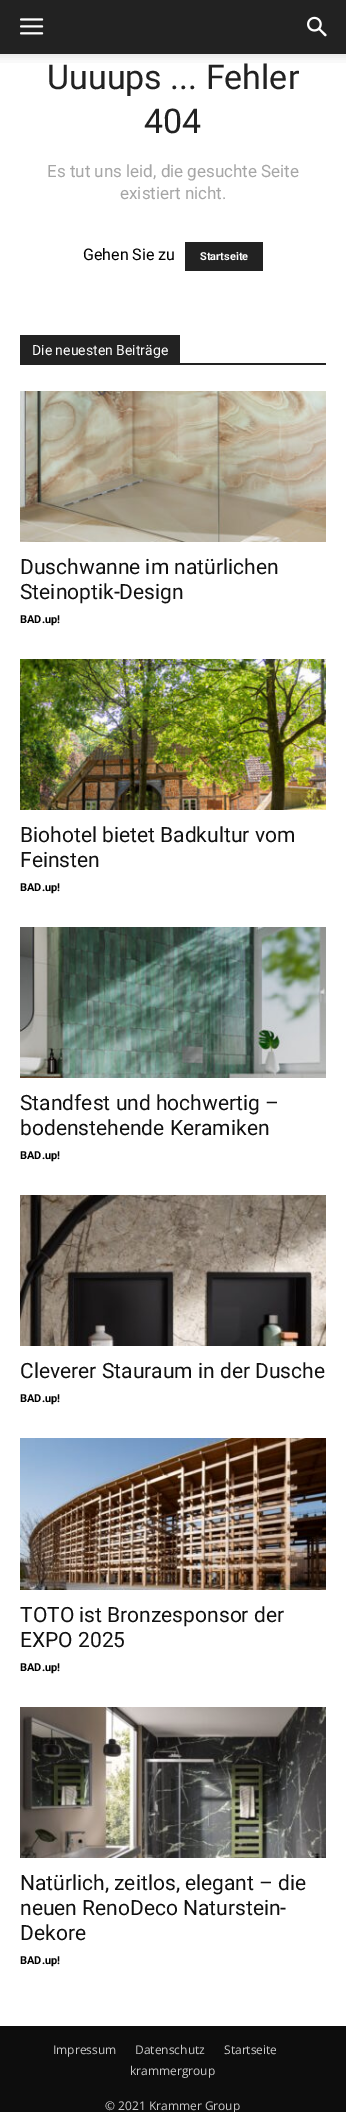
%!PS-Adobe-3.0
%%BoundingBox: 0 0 346 2112
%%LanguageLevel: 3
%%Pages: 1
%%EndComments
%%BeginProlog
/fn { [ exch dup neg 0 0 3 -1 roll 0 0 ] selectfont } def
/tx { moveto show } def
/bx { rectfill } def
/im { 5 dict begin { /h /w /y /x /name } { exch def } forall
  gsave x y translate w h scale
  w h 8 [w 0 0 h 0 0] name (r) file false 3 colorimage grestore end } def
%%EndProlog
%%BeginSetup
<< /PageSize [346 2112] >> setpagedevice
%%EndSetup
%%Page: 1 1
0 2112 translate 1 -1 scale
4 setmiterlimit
1 setgray
0 0 346 2112 bx
0.133 setgray
0 0 346 54 bx
(image0.raw) 20 18 24 17 im
(image1.raw) 307 16 20 21 im
(image2.raw) 0 54 346 9 im
/Roboto-Regular 34 fn
(Uuuups ... Fehler) 47 89 tx
(404) 144 133 tx
/Roboto-Regular 17 fn
0.651 setgray
(Es tut uns leid, die gesuchte Seite) 47 177 tx
(existiert nicht.) 120 199 tx
/Roboto-Regular 16 fn
0 setgray
(Gehen Sie zu) 83 260 tx
0.133 setgray
185 242 78 29 bx
/Roboto-Bold 11 fn
1 setgray
(Startseite) 200 260 tx
0.133 setgray
20 363 306 2 bx
20 335 160 28 bx
/Roboto-Regular 14 fn
1 setgray
(Die neuesten Beiträge) 32 355 tx
(image3.raw) 20 391 306 151 im
/Roboto-Regular 21 fn
0.067 setgray
(Duschwanne im natürlichen) 20 574 tx
(Steinoptik-Design) 20 599 tx
/Roboto-Bold 11 fn
0 setgray
(BAD.up!) 20 623 tx
(image4.raw) 20 659 306 151 im
/Roboto-Regular 21 fn
0.067 setgray
(Biohotel bietet Badkultur vom) 20 842 tx
(Feinsten) 20 867 tx
/Roboto-Bold 11 fn
0 setgray
(BAD.up!) 20 891 tx
(image5.raw) 20 927 306 151 im
/Roboto-Regular 21 fn
0.067 setgray
(Standfest und hochwertig –) 20 1110 tx
(bodenstehende Keramiken) 20 1135 tx
/Roboto-Bold 11 fn
0 setgray
(BAD.up!) 20 1159 tx
(image6.raw) 20 1195 306 151 im
/Roboto-Regular 21 fn
0.067 setgray
(Cleverer Stauraum in der Dusche) 20 1378 tx
/Roboto-Bold 11 fn
0 setgray
(BAD.up!) 20 1402 tx
(image7.raw) 20 1438 306 152 im
/Roboto-Regular 21 fn
0.067 setgray
(TOTO ist Bronzesponsor der) 20 1622 tx
(EXPO 2025) 20 1647 tx
/Roboto-Bold 11 fn
0 setgray
(BAD.up!) 20 1671 tx
(image8.raw) 20 1707 306 151 im
/Roboto-Regular 21 fn
0.067 setgray
(Natürlich, zeitlos, elegant – die) 20 1890 tx
(neuen RenoDeco Naturstein-) 20 1915 tx
(Dekore) 20 1940 tx
/Roboto-Bold 11 fn
0 setgray
(BAD.up!) 20 1964 tx
0.051 setgray
0 2026 346 86 bx
/OpenSans-Regular 12 fn
0.8 setgray
(Impressum) 53 2054 tx
(Datenschutz) 135 2054 tx
(Startseite) 224 2054 tx
(krammergroup) 130 2075 tx
(© 2021 Krammer Group) 105 2110 tx
showpage
%%EOF
